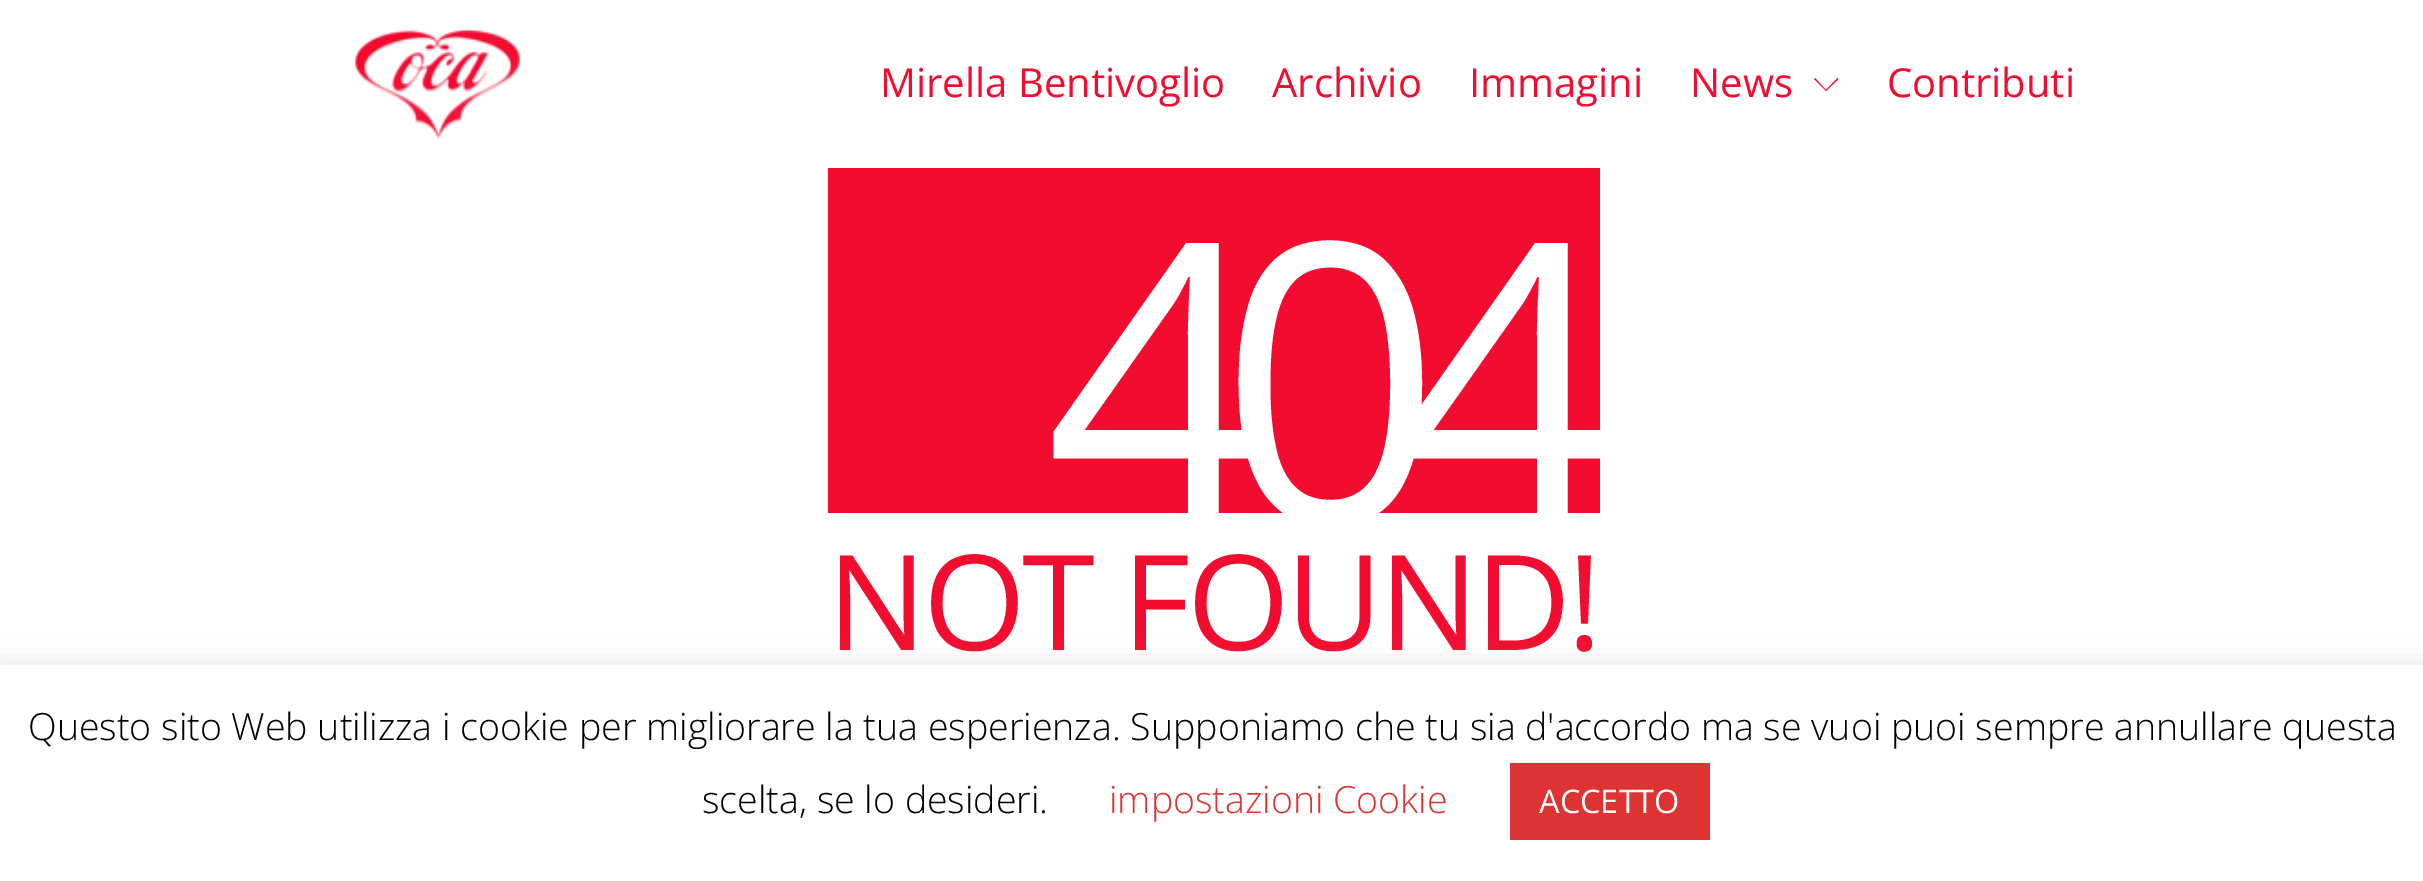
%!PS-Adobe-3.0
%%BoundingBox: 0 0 2423 881
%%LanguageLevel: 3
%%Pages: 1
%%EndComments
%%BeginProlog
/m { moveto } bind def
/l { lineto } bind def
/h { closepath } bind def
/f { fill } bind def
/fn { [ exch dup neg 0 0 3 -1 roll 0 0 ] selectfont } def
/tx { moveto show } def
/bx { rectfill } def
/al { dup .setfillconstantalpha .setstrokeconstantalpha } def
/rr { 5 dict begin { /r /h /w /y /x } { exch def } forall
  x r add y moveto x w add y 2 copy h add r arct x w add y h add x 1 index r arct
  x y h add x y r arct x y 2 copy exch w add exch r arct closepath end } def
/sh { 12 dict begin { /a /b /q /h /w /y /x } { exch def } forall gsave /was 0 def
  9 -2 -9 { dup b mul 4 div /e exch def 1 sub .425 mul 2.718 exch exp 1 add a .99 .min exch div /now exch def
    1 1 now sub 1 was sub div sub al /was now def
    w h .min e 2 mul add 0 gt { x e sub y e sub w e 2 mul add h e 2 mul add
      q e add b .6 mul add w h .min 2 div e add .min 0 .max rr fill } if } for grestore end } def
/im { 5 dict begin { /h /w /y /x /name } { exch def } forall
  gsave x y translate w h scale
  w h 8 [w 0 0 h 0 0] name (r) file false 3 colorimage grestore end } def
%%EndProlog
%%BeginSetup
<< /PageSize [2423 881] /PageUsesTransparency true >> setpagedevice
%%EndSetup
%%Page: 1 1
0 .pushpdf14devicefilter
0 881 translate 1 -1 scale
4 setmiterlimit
1 setgray
0 0 2423 881 bx
(image0.raw) 353 28 169 112 im
/OpenSans-Regular 40 fn
0.949 0.051 0.188 setrgbcolor
(Mirella Bentivoglio) 880 97 tx
(Archivio) 1272 97 tx
(Immagini) 1469 97 tx
(News) 1690 97 tx
1826 91 m 1814 79 l 1815 78 l 1826 90 l 1837.5 78 l 1838.5 79 l h f
(Contributi) 1887 97 tx
828 168 772 345 bx
/OpenSans-Regular 390 fn
1 setgray
1045 523 m -75 0 (4 0 4) ashow
/OpenSans-Regular 132.5 fn
0.949 0.051 0.188 setrgbcolor
827 650 m -3.75 0 (NOT FOUND!) ashow
0.675 0.671 0.671 setrgbcolor
0 663 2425 217 0 12.5 0.3 sh
1 setgray
0 665 2423 216 bx
/OpenSans-Light 37.5 fn
0 setgray
(Questo sito Web utilizza i cookie per migliorare la tua esperienza. Supponiamo che tu sia d'accordo ma se vuoi puoi sempre annullare questa) 28 740 tx
(scelta, se lo desideri.) 702 813 tx
0.867 0.2 0.2 setrgbcolor
(impostazioni Cookie) 1109 813 tx
1510 763 200 77 bx
/OpenSans-Regular 32.5 fn
1 setgray
(ACCETTO) 1539 813 tx
.poppdf14devicefilter showpage
%%EOF
